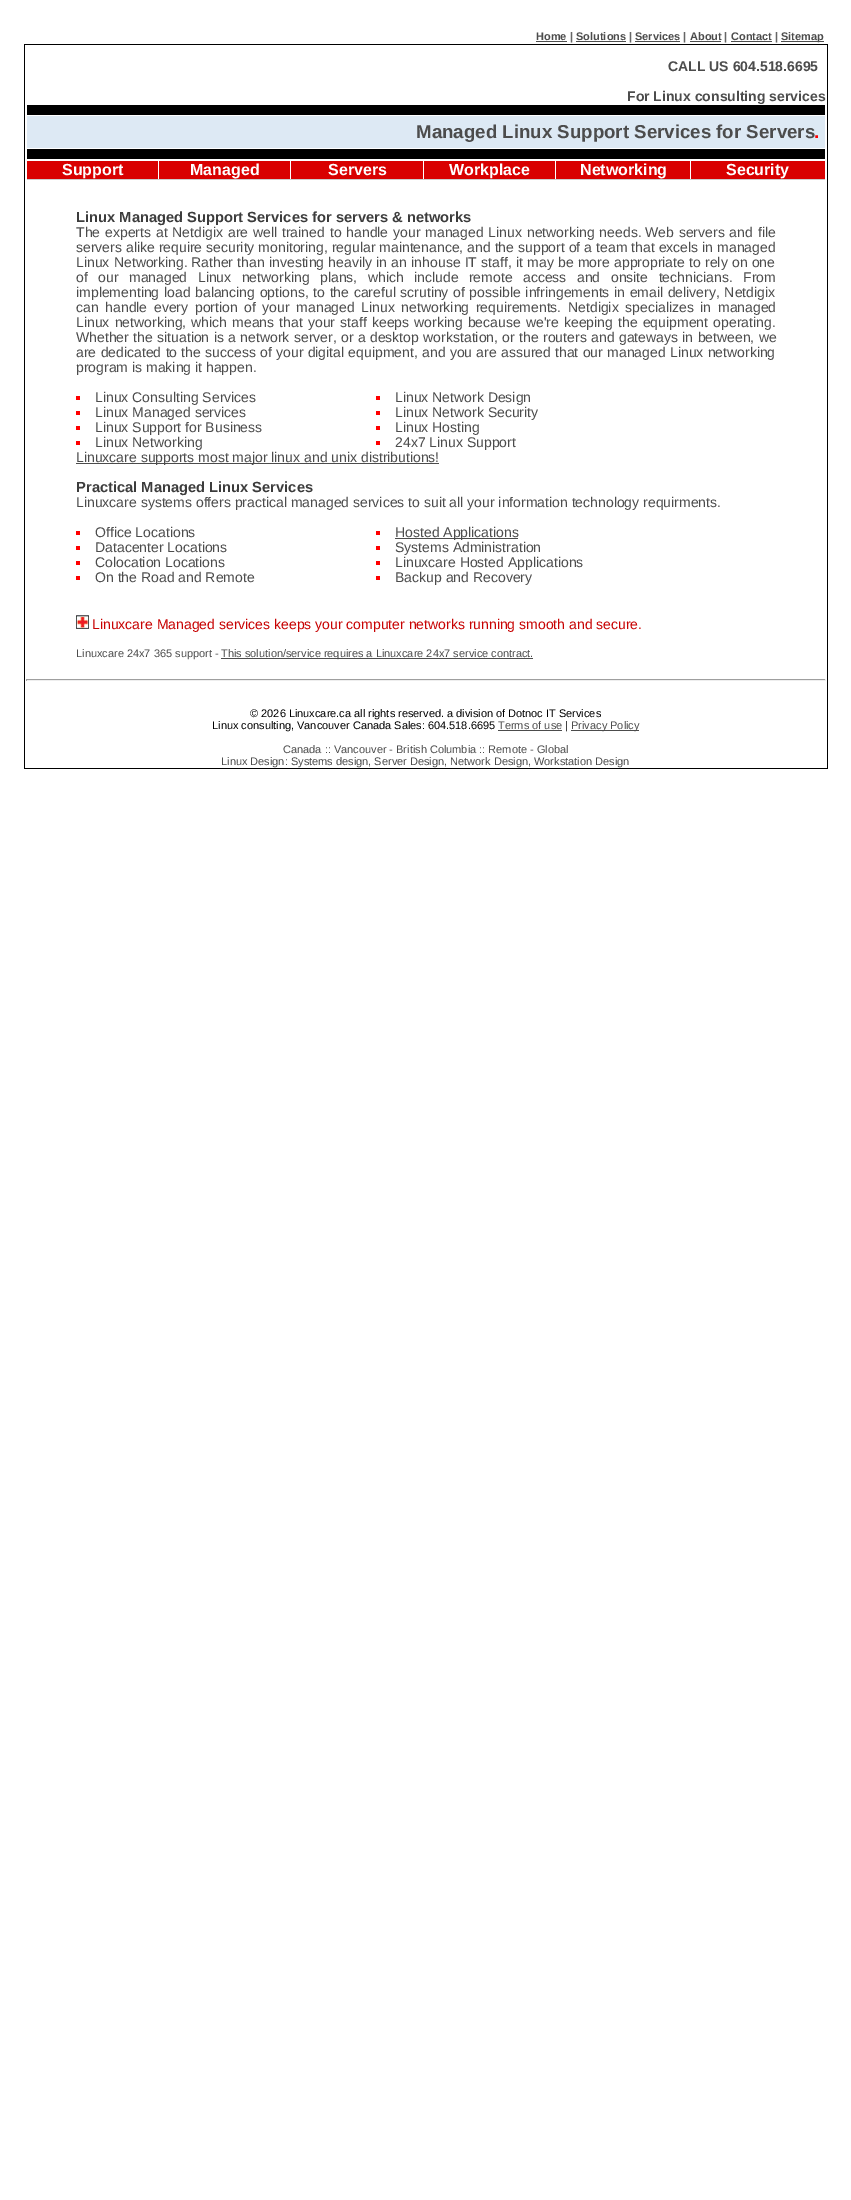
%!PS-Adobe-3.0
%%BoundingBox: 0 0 851 2200
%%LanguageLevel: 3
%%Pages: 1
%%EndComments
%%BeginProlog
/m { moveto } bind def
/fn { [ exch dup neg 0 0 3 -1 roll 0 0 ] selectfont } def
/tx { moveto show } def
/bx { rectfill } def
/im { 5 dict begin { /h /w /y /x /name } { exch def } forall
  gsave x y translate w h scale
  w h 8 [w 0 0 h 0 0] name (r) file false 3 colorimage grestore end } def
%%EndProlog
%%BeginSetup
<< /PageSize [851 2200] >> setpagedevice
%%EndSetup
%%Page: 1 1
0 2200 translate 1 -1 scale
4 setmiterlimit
1 setgray
0 0 851 2200 bx
/LiberationSans-Bold 11 fn
0.298 setgray
(Home) 536 40 tx
536 41 31 1 bx
0.4 setgray
(|) 570 40 tx
0.298 setgray
(Solutions) 576 40 tx
576 41 50 1 bx
0.4 setgray
(|) 629 40 tx
0.298 setgray
(Services) 635 40 tx
635 41 45 1 bx
0.4 setgray
(|) 683 40 tx
0.298 setgray
(About) 690 40 tx
690 41 31 1 bx
0.4 setgray
(|) 724 40 tx
0.298 setgray
(Contact) 731 40 tx
731 41 41 1 bx
0.4 setgray
(|) 775 40 tx
0.298 setgray
781 41 43 1 bx
(Sitemap) 781 40 tx
0 setgray
24 44 804 725 bx
1 setgray
25 45 802 723 bx
/LiberationSans-Bold 14 fn
0.298 setgray
(CALL US 604.518.6695) 668 71 tx
(For Linux consulting services) 627 101 tx
0 setgray
27 105 798 10 bx
0.867 0.914 0.957 setrgbcolor
27 116 798 32 bx
/LiberationSans-Bold 18.7 fn
0.298 setgray
(Managed Linux Support Services for Servers) 416 138 tx
1 0 0 setrgbcolor
(.) 814 138 tx
0 setgray
27 149 798 10 bx
0.851 0 0 setrgbcolor
27 161 131 18 bx
/LiberationSans-Bold 16 fn
1 setgray
(Support) 62 175 tx
0.851 0 0 setrgbcolor
159 161 131 18 bx
1 setgray
(Managed) 190 175 tx
0.851 0 0 setrgbcolor
291 161 132 18 bx
1 setgray
(Servers) 328 175 tx
0.851 0 0 setrgbcolor
424 161 131 18 bx
1 setgray
(Workplace) 449 175 tx
0.851 0 0 setrgbcolor
556 161 134 18 bx
1 setgray
(Networking) 580 175 tx
0.851 0 0 setrgbcolor
691 161 134 18 bx
1 setgray
(Security) 726 175 tx
0.8 setgray
27 179 798 1 bx
/LiberationSans-Bold 14.7 fn
0.235 setgray
(Linux Managed Support Services for servers & networks) 76 222 tx
/LiberationSans-Regular 14 fn
0.298 setgray
76 237 m 1 0 32 (The experts at Netdigix are well trained to handle your managed Linux networking needs.) widthshow
645 237 m 1 0 32 (Web servers and file) widthshow
76 252 m 0.1 0 32 (servers alike require security monitoring, regular maintenance, and the support of a team that excels in managed) widthshow
76 267 m 0.4 0 32 (Linux Networking.) widthshow
191 267 m 0.4 0 32 (Rather than investing heavily in an inhouse IT staff, it may be more appropriate to rely on one) widthshow
76 282 m 6.6 0 32 (of our managed Linux networking plans, which include remote access and onsite technicians.) widthshow
(From) 743 282 tx
76 297 m 0.75 0 32 (implementing load balancing options, to the careful scrutiny of possible infringements in email delivery, Netdigix) widthshow
76 312 m 2.75 0 32 (can handle every portion of your managed Linux networking requirements. Netdigix specializes in managed) widthshow
76 327 m 1.25 0 32 (Linux networking, which means that your staff keeps working because we're keeping the equipment operating.) widthshow
76 342 m 0.5 0 32 (Whether the situation is a network server, or a desktop workstation, or the routers and gateways in between, we) widthshow
76 357 m 0.4 0 32 (are dedicated to the success of your digital equipment, and you are assured that our managed Linux networking) widthshow
(program is making it happen.) 76 372 tx
1 0 0 setrgbcolor
76 396 4 4 bx
0.298 setgray
(Linux Consulting Services) 95 402 tx
1 0 0 setrgbcolor
76 411 4 4 bx
0.298 setgray
(Linux Managed services) 95 417 tx
1 0 0 setrgbcolor
76 426 4 4 bx
0.298 setgray
(Linux Support for Business) 95 432 tx
1 0 0 setrgbcolor
76 441 4 4 bx
0.298 setgray
(Linux Networking) 95 447 tx
1 0 0 setrgbcolor
376 396 4 4 bx
0.298 setgray
(Linux Network Design) 395 402 tx
1 0 0 setrgbcolor
376 411 4 4 bx
0.298 setgray
(Linux Network Security) 395 417 tx
1 0 0 setrgbcolor
376 426 4 4 bx
0.298 setgray
(Linux Hosting) 395 432 tx
1 0 0 setrgbcolor
376 441 4 4 bx
0.298 setgray
(24x7 Linux Support) 395 447 tx
76 463 363 1 bx
(Linuxcare supports most major linux and unix distributions!) 76 462 tx
/LiberationSans-Bold 14.7 fn
0.235 setgray
(Practical Managed Linux Services) 76 492 tx
/LiberationSans-Regular 14 fn
0.298 setgray
(Linuxcare systems offers practical managed services to suit all your information technology requirments.) 76 507 tx
1 0 0 setrgbcolor
76 531 4 4 bx
0.298 setgray
(Office Locations) 95 537 tx
1 0 0 setrgbcolor
76 546 4 4 bx
0.298 setgray
(Datacenter Locations) 95 552 tx
1 0 0 setrgbcolor
76 561 4 4 bx
0.298 setgray
(Colocation Locations) 95 567 tx
1 0 0 setrgbcolor
76 576 4 4 bx
0.298 setgray
(On the Road and Remote) 95 582 tx
1 0 0 setrgbcolor
376 531 4 4 bx
0.298 setgray
395 538 123 1 bx
(Hosted Applications) 395 537 tx
1 0 0 setrgbcolor
376 546 4 4 bx
0.298 setgray
(Systems Administration) 395 552 tx
1 0 0 setrgbcolor
376 561 4 4 bx
0.298 setgray
(Linuxcare Hosted Applications) 395 567 tx
1 0 0 setrgbcolor
376 576 4 4 bx
0.298 setgray
(Backup and Recovery) 395 582 tx
(image0.raw) 76 615 13 14 im
0.784 0.008 0.008 setrgbcolor
(Linuxcare Managed services keeps your computer networks running smooth and secure.) 92 629 tx
/LiberationSans-Regular 11 fn
0.298 setgray
(Linuxcare 24x7 365 support -) 76 657 tx
221 658 312 1 bx
(This solution/service requires a Linuxcare 24x7 service contract.) 221 657 tx
0.624 setgray
26 679 800 1 bx
0.933 setgray
825 679 1 2 bx
26 680 800 1 bx
0.624 setgray
26 679 1 2 bx
0 setgray
(© 2026 Linuxcare.ca all rights reserved. a division of Dotnoc IT Services) 250 717 tx
(Linux consulting, Vancouver Canada Sales: 604.518.6695) 212 729 tx
0.298 setgray
(Terms of use) 498 729 tx
498 730 64 1 bx
0 setgray
(|) 565 729 tx
0.298 setgray
571 730 68 1 bx
(Privacy Policy) 571 729 tx
(Canada :: Vancouver - British Columbia :: Remote - Global) 283 753 tx
(Linux Design: Systems design, Server Design, Network Design, Workstation Design) 221 765 tx
showpage
%%EOF
